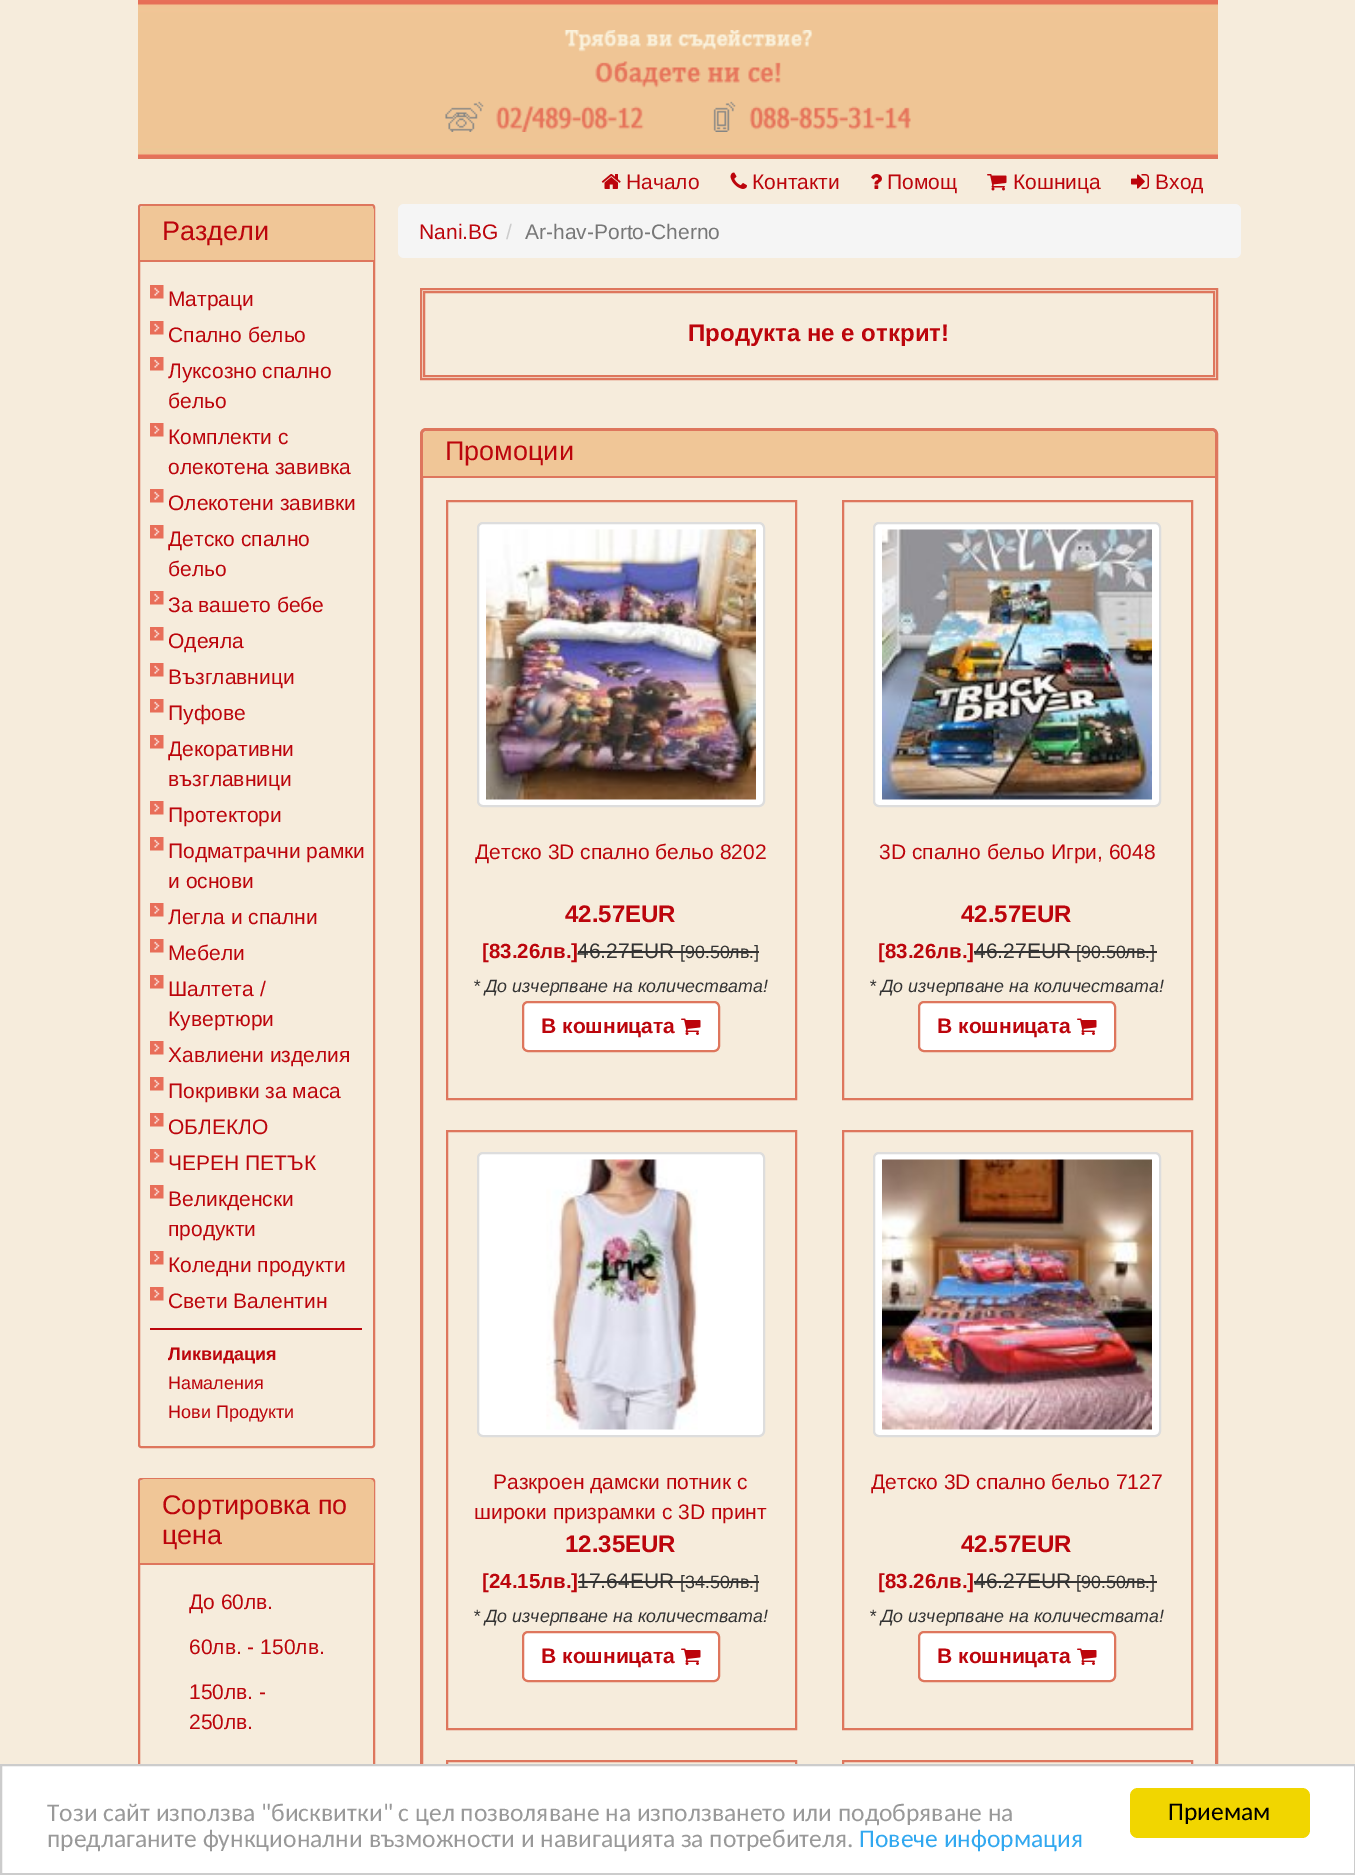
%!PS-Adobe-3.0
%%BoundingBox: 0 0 1355 1875
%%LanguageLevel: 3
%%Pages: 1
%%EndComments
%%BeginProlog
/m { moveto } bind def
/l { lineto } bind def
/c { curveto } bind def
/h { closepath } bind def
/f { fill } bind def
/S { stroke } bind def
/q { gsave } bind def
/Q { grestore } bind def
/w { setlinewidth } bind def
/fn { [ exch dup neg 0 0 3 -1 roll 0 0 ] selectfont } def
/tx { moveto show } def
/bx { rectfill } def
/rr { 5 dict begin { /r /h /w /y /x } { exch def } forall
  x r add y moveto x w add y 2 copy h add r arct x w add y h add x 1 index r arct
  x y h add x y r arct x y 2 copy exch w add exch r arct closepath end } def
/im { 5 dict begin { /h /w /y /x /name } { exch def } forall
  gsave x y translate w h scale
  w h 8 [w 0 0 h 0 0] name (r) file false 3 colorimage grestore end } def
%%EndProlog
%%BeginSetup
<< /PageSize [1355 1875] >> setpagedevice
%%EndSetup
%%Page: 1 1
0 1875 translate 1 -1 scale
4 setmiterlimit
0.965 0.925 0.863 setrgbcolor
0 0 1355 1875 bx
(image0.raw) 138 0 1080 159 im
(image1.raw) 445 30 466 102 im
(image2.raw) 601 174 20 15 im
/LiberationSans-Regular 21 fn
0.737 0.02 0.047 setrgbcolor
(Начало) 626 189 tx
(image3.raw) 730 172 17 17 im
(Контакти) 752 189 tx
(image4.raw) 871 174 11 15 im
(Помощ) 887 189 tx
(image5.raw) 987 174 20 17 im
(Кошница) 1013 189 tx
(image6.raw) 1131 174 18 15 im
(Вход) 1155 189 tx
0.871 0.463 0.365 setrgbcolor
2 w
139 205 235 1242 2 rr S
0.941 0.776 0.592 setrgbcolor
145 206 m 369 206 l 372 206 374 208 374 211 c 374 261 l 140 261 l 140 211 l 140 208 142 206 145 206 c h f
0.871 0.463 0.365 setrgbcolor
140 260 234 2 bx
/LiberationSans-Regular 27 fn
0.737 0.02 0.047 setrgbcolor
(Раздели) 162 240 tx
(image7.raw) 150 285 14 14 im
/LiberationSans-Regular 21 fn
(Матраци) 168 306 tx
(image7.raw) 150 321 14 14 im
(Спално бельо) 168 342 tx
(image7.raw) 150 357 14 14 im
(Луксозно спално) 168 378 tx
(бельо) 168 408 tx
(image7.raw) 150 423 14 14 im
(Комплекти с) 168 444 tx
(олекотена завивка) 168 474 tx
(image7.raw) 150 489 14 14 im
(Олекотени завивки) 168 510 tx
(image7.raw) 150 525 14 14 im
(Детско спално) 168 546 tx
(бельо) 168 576 tx
(image7.raw) 150 591 14 14 im
(За вашето бебе) 168 612 tx
(image7.raw) 150 627 14 14 im
(Одеяла) 168 648 tx
(image7.raw) 150 663 14 14 im
(Възглавници) 168 684 tx
(image7.raw) 150 699 14 14 im
(Пуфове) 168 720 tx
(image7.raw) 150 735 14 14 im
(Декоративни) 168 756 tx
(възглавници) 168 786 tx
(image7.raw) 150 801 14 14 im
(Протектори) 168 822 tx
(image7.raw) 150 837 14 14 im
(Подматрачни рамки) 168 858 tx
(и основи) 168 888 tx
(image7.raw) 150 903 14 14 im
(Легла и спални) 168 924 tx
(image7.raw) 150 939 14 14 im
(Мебели) 168 960 tx
(image7.raw) 150 975 14 14 im
(Шалтета /) 168 996 tx
(Кувертюри) 168 1026 tx
(image7.raw) 150 1041 14 14 im
(Хавлиени изделия) 168 1062 tx
(image7.raw) 150 1077 14 14 im
(Покривки за маса) 168 1098 tx
(image7.raw) 150 1113 14 14 im
(ОБЛЕКЛО) 168 1134 tx
(image7.raw) 150 1149 14 14 im
(ЧЕРЕН ПЕТЪК) 168 1170 tx
(image7.raw) 150 1185 14 14 im
(Великденски) 168 1206 tx
(продукти) 168 1236 tx
(image7.raw) 150 1251 14 14 im
(Коледни продукти) 168 1272 tx
(image7.raw) 150 1287 14 14 im
(Свети Валентин) 168 1308 tx
150 1328 212 2 bx
/LiberationSans-Bold 18 fn
(Ликвидация) 168 1360 tx
/LiberationSans-Regular 18 fn
(Намаления) 168 1389 tx
(Нови Продукти) 168 1418 tx
0.871 0.463 0.365 setrgbcolor
139 1479 235 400 2 rr S
0.941 0.776 0.592 setrgbcolor
145 1479 m 369 1479 l 372 1479 374 1481 374 1484 c 374 1565 l 140 1565 l 140 1484 l 140 1481 142 1479 145 1479 c h f
0.871 0.463 0.365 setrgbcolor
140 1563 234 2 bx
/LiberationSans-Regular 27 fn
0.737 0.02 0.047 setrgbcolor
(Сортировка по) 162 1514 tx
(цена) 162 1544 tx
/LiberationSans-Regular 21 fn
(До 60лв.) 189 1609 tx
(60лв. - 150лв.) 189 1654 tx
(150лв. -) 189 1699 tx
(250лв.) 189 1729 tx
0.961 setgray
398 204 843 54 6 rr f
0.737 0.02 0.047 setrgbcolor
(Nani.BG) 419 239 tx
0.8 setgray
(/) 506 239 tx
0.467 setgray
(Ar-hav-Porto-Cherno) 525 239 tx
0.871 0.463 0.365 setrgbcolor
421 289 796 90 rectstroke
424 292 790 84 rectstroke
/LiberationSans-Bold 24 fn
0.737 0.02 0.047 setrgbcolor
(Продукта не е открит!) 688 341 tx
0.871 0.463 0.365 setrgbcolor
3 w
421.5 429.5 795 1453 4.5 rr S
0.941 0.776 0.592 setrgbcolor
428 431 m 1210 431 l 1213 431 1215 433 1215 436 c 1215 477 l 423 477 l 423 436 l 423 433 425 431 428 431 c h f
0.871 0.463 0.365 setrgbcolor
423 476 792 2 bx
/LiberationSans-Regular 27 fn
0.737 0.02 0.047 setrgbcolor
(Промоции) 445 460 tx
0.871 0.463 0.365 setrgbcolor
2 w
447 501 349 598 rectstroke
1 setgray
478 523 286 283 5 rr q f Q
0.867 setgray
S
(image8.raw) 486 529 270 271 im
/LiberationSans-Regular 21 fn
0.737 0.02 0.047 setrgbcolor
(Детско 3D спално бельо 8202) 475 859 tx
/LiberationSans-Bold 24 fn
(42.57EUR) 565 922 tx
/LiberationSans-Bold 20.5 fn
([83.26лв.]) 482 958 tx
/LiberationSans-Regular 21 fn
0.2 setgray
(46.27EUR) 577 958 tx
578 951 102 2 bx
/LiberationSans-Regular 17.8 fn
([90.50лв.]) 680 958 tx
680 951 79 2 bx
/LiberationSans-Italic 17.8 fn
(* До изчерпване на количествата!) 473 992 tx
1 setgray
523 1002 196 49 5 rr q f Q
0.871 0.463 0.365 setrgbcolor
S
/LiberationSans-Bold 21 fn
0.737 0.02 0.047 setrgbcolor
(В кошницата) 541 1033 tx
(image9.raw) 681 1018 20 17 im
0.871 0.463 0.365 setrgbcolor
843 501 349 598 rectstroke
1 setgray
874 523 286 283 5 rr q f Q
0.867 setgray
S
(image10.raw) 882 529 270 271 im
/LiberationSans-Regular 21 fn
0.737 0.02 0.047 setrgbcolor
(3D спално бельо Игри, 6048) 879 859 tx
/LiberationSans-Bold 24 fn
(42.57EUR) 961 922 tx
/LiberationSans-Bold 20.5 fn
([83.26лв.]) 878 958 tx
/LiberationSans-Regular 21 fn
0.2 setgray
(46.27EUR) 974 958 tx
974 951 103 2 bx
/LiberationSans-Regular 17.8 fn
([90.50лв.]) 1076 958 tx
1077 951 80 2 bx
/LiberationSans-Italic 17.8 fn
(* До изчерпване на количествата!) 869 992 tx
1 setgray
919 1002 196 49 5 rr q f Q
0.871 0.463 0.365 setrgbcolor
S
/LiberationSans-Bold 21 fn
0.737 0.02 0.047 setrgbcolor
(В кошницата) 937 1033 tx
(image9.raw) 1077 1018 20 17 im
0.871 0.463 0.365 setrgbcolor
447 1131 349 598 rectstroke
1 setgray
478 1153 286 283 5 rr q f Q
0.867 setgray
S
(image11.raw) 546 1159 152 271 im
/LiberationSans-Regular 21 fn
0.737 0.02 0.047 setrgbcolor
(Разкроен дамски потник с) 493 1489 tx
(широки призрамки с 3D принт) 474 1519 tx
/LiberationSans-Bold 24 fn
(12.35EUR) 565 1552 tx
/LiberationSans-Bold 20.5 fn
([24.15лв.]) 482 1588 tx
/LiberationSans-Regular 21 fn
0.2 setgray
(17.64EUR) 577 1588 tx
578 1581 102 2 bx
/LiberationSans-Regular 17.8 fn
([34.50лв.]) 680 1588 tx
680 1581 79 2 bx
/LiberationSans-Italic 17.8 fn
(* До изчерпване на количествата!) 473 1622 tx
1 setgray
523 1632 196 49 5 rr q f Q
0.871 0.463 0.365 setrgbcolor
S
/LiberationSans-Bold 21 fn
0.737 0.02 0.047 setrgbcolor
(В кошницата) 541 1663 tx
(image9.raw) 681 1648 20 17 im
0.871 0.463 0.365 setrgbcolor
843 1131 349 598 rectstroke
1 setgray
874 1153 286 283 5 rr q f Q
0.867 setgray
S
(image12.raw) 882 1159 270 271 im
/LiberationSans-Regular 21 fn
0.737 0.02 0.047 setrgbcolor
(Детско 3D спално бельо 7127) 871 1489 tx
/LiberationSans-Bold 24 fn
(42.57EUR) 961 1552 tx
/LiberationSans-Bold 20.5 fn
([83.26лв.]) 878 1588 tx
/LiberationSans-Regular 21 fn
0.2 setgray
(46.27EUR) 974 1588 tx
974 1581 103 2 bx
/LiberationSans-Regular 17.8 fn
([90.50лв.]) 1076 1588 tx
1077 1581 80 2 bx
/LiberationSans-Italic 17.8 fn
(* До изчерпване на количествата!) 869 1622 tx
1 setgray
919 1632 196 49 5 rr q f Q
0.871 0.463 0.365 setrgbcolor
S
/LiberationSans-Bold 21 fn
0.737 0.02 0.047 setrgbcolor
(В кошницата) 937 1663 tx
(image9.raw) 1077 1648 20 17 im
0.871 0.463 0.365 setrgbcolor
447 1761 349 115 rectstroke
843 1761 349 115 rectstroke
1 setgray
1 1765 m 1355 1765 l 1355 1874 l 1 1874 l h q f Q
0.8 setgray
S
/Carlito-Regular 25.5 fn
0.6 setgray
(Този сайт използва "бисквитки" с цел позволяване на използването или подобряване на) 47 1821 tx
(предлаганите функционални възможности и навигацията за потребителя.) 47 1847 tx
0.192 0.659 0.941 setrgbcolor
(Повече информация) 859 1847 tx
0.945 0.839 0 setrgbcolor
1130 1788 180 50 8 rr f
0 setgray
(Приемам) 1168 1820 tx
showpage
%%EOF
